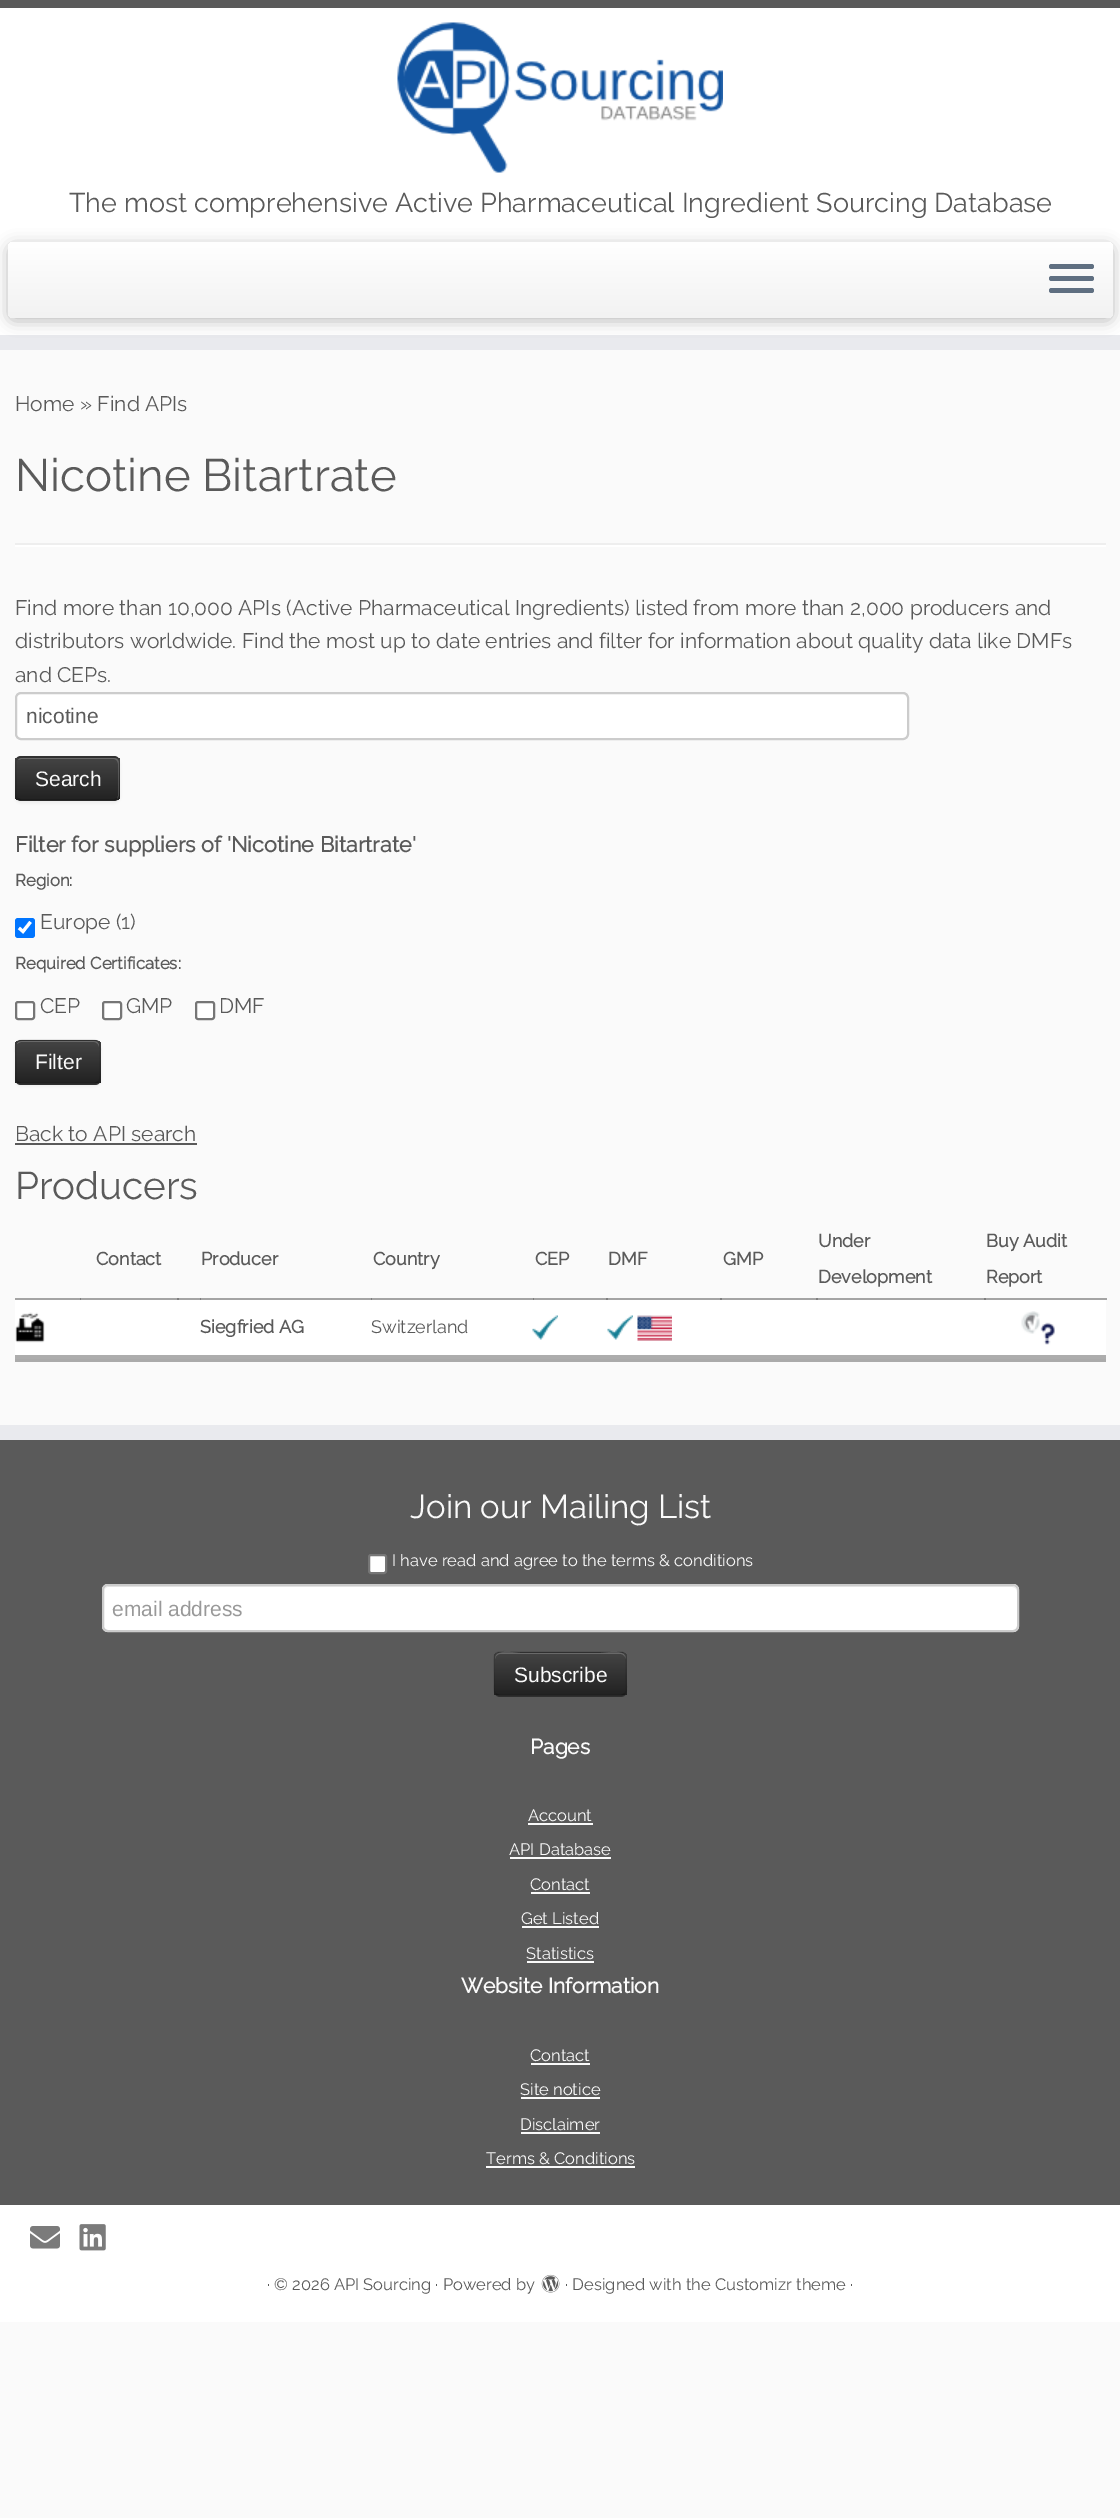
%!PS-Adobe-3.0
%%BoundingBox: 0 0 1120 2518
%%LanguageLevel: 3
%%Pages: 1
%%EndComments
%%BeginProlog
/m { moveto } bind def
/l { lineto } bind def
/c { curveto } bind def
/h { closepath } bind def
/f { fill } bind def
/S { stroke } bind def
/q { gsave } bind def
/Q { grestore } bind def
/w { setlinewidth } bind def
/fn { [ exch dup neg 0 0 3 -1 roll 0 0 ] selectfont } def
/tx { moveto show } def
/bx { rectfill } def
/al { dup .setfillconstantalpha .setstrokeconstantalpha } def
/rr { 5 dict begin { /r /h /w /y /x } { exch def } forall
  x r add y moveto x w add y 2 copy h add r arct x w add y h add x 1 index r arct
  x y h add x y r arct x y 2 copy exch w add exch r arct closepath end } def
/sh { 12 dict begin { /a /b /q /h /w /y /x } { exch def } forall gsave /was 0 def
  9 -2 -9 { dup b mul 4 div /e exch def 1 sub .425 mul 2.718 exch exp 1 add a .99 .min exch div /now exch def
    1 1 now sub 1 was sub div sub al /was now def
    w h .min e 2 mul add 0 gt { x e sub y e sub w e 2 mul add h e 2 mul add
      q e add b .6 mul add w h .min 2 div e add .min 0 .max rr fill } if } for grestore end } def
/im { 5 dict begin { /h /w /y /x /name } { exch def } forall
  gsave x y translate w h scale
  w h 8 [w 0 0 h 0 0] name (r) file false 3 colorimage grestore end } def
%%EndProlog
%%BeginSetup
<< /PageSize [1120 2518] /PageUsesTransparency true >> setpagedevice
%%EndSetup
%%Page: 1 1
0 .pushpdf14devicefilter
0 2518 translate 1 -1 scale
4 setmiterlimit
0.98 setgray
0 0 1120 2518 bx
0.667 setgray
15 1359 1091 3 bx
1 setgray
0 8 1120 327 bx
0.353 setgray
0 0 1120 8 bx
0.914 0.918 0.933 setrgbcolor
0 335 1120 15 bx
(image0.raw) 397 22 326 151 im
/Raleway-Thin 27 fn
0.353 setgray
(The most comprehensive Active Pharmaceutical Ingredient Sourcing Database) 69 212 tx
0 setgray
8 245 1105 76 6 7.5 0.25 sh
q 8 242 1105 76 6 rr clip newpath
<< /ShadingType 2 /ColorSpace /DeviceRGB /Coords [560 241 560 318] /Extend [true true] /Function << /FunctionType 2 /Domain [0 1] /C0 [1 1 1] /C1 [0.949 0.949 0.949] /N 1 >> >> shfill Q
0.373 0.435 0.506 setrgbcolor
1049 264 45 5 2.5 rr f
1049 276 45 5 2.5 rr f
1049 288 45 5 2.5 rr f
/Raleway-Thin 21 fn
0.353 setgray
(Home » Find APIs) 15 411 tx
/Raleway-Thin 45.5 fn
(Nicotine Bitartrate) 15 491 tx
0.933 setgray
15 543 1091 2 bx
1 setgray
15 545 1091 2 bx
/Raleway-Thin 21 fn
0.353 setgray
(Find more than 10,000 APIs \(Active Pharmaceutical Ingredients\) listed from more than 2,000 producers and) 15 615 tx
(distributors worldwide. Find the most up to date entries and filter for information about quality data like DMFs) 15 648 tx
(and CEPs.) 15 682 tx
1 setgray
15 692 894 48 6 rr f
0.925 setgray
21 694 m 903 694 l 905 694 908 697 908 699 c 908 698 l 908 695 906 693 903 693 c 22 693 l 20 693 18 694 17 696 c 18 695 20 694 21 694 c h f
0.8 setgray
2 w
16 693 892 46 5 rr S
/LiberationSans-Regular 21 fn
0.353 setgray
(nicotine) 26 723 tx
0 setgray
15 758 105 45 6 1.5 0.05 sh
0.212 setgray
15 756 105 45 6 rr f
q
15 756 105 45 6 rr clip newpath
q 15 758 m 120 758 l 120 800 l 15 800 l h clip newpath
<< /ShadingType 2 /ColorSpace /DeviceRGB /Coords [68 758 68 800] /Extend [true true] /Function << /FunctionType 2 /Domain [0 1] /C0 [0.267 0.267 0.267] /C1 [0.133 0.133 0.133] /N 1 >> >> shfill Q
Q
0.2 al
1 setgray
21 759 m 114 759 l 116 759 118 761 118 764 c 118 796 l 117 799 l 118 798 119 796 119 795 c 119 763 l 119 760 117 758 114 758 c 22 758 l 20 758 19 759 18 760 c h f
0.25 al
0 setgray
1.5 w
117.5 798.5 m 114.5 800 l 20.5 800 l 17.5 798.5 l S
0.1 al
17.5 798.5 m 15 796.5 16 792.5 16 789.5 c 16 778.5 l 16 754.5 12 757 36.5 757 c 98.5 757 l 123 757 119 754.5 119 778.5 c 119 789.5 l 119 792.5 120 796.5 117.5 798.5 c S
1 al
0.98 setgray
(Search) 35 786 tx
/Raleway-Bold 21.6 fn
0.353 setgray
(Filter for suppliers of 'Nicotine Bitartrate') 15 852 tx
/Raleway-Bold 16.75 fn
(Region:) 15 886 tx
0 0.459 1 setrgbcolor
15 918 20 20 3 rr f
1 setgray
3.1 w
19 928 m 23 931.5 l 30.5 922 l S
/Raleway-Thin 21 fn
0.353 setgray
(Europe \(1\)) 40 929 tx
/Raleway-Bold 16.75 fn
(Required Certificates:) 15 969 tx
1 setgray
16 1002 18 17 2 rr q f Q
0.463 setgray
2 w
S
/Raleway-Thin 21 fn
0.353 setgray
(CEP) 40 1013 tx
1 setgray
103 1002 18 17 2 rr q f Q
0.463 setgray
S
0.353 setgray
(GMP) 126 1013 tx
1 setgray
196 1002 18 17 2 rr q f Q
0.463 setgray
S
0.353 setgray
(DMF) 219 1013 tx
0 setgray
15 1041 86 45 6 1.5 0.05 sh
0.212 setgray
15 1040 86 45 6 rr f
q
15 1040 86 45 6 rr clip newpath
q 15 1041 m 101 1041 l 101 1083 l 15 1083 l h clip newpath
<< /ShadingType 2 /ColorSpace /DeviceRGB /Coords [58 1041 58 1083] /Extend [true true] /Function << /FunctionType 2 /Domain [0 1] /C0 [0.267 0.267 0.267] /C1 [0.133 0.133 0.133] /N 1 >> >> shfill Q
Q
0.2 al
1 setgray
21 1042 m 94 1042 l 97 1042 99 1045 99 1047 c 99 1046 l 99 1043 97 1041 94 1041 c 22 1041 l 20 1041 18 1042 17 1044 c 18 1043 20 1042 21 1042 c h f
0.25 al
0 setgray
1.5 w
98 1082 m 95 1083.5 l 20.5 1083.5 l 17.5 1082 l S
0.1 al
17.5 1082 m 15 1080 16 1076 16 1073 c 16 1062 l 16 1039.5 11.5 1040 33 1040 c 82 1040 l 104 1040 100 1039.5 100 1062 c 100 1073 l 100 1076 100.5 1080 98 1082 c S
/LiberationSans-Regular 21 fn
1 al
0.98 setgray
(Filter) 35 1069 tx
/Raleway-Thin 21 fn
0.353 setgray
(Back to API search) 15 1141 tx
15 1143 182 2 bx
/Raleway-Thin 38.5 fn
(Producers) 15 1199 tx
/Raleway-Bold 18 fn
(Contact) 96 1265 tx
(Producer) 201 1265 tx
(Country) 373 1265 tx
(CEP) 535 1265 tx
(DMF) 608 1265 tx
(GMP) 723 1265 tx
(Under) 818 1247 tx
(Development) 818 1283 tx
0.643 setgray
15 1298 1092 2 bx
0.498 setgray
984 1298 2 2 bx
0.353 setgray
(Buy Audit) 986 1247 tx
(Report) 986 1283 tx
1 setgray
15 1300 1091 55 bx
0.678 setgray
15 1355 1091 4 bx
0.498 setgray
80 1298 1 2 bx
(image1.raw) 15 1312 30 31 im
177 1298 2 2 bx
200 1298 1 2 bx
606 1298 2 2 bx
(image2.raw) 532 1315 26 25 im
720 1298 2 2 bx
(image2.raw) 607 1315 26 25 im
(image3.raw) 637 1315 35 26 im
816 1298 2 2 bx
371 1298 1 2 bx
0.353 setgray
(Siegfried AG) 200 1333 tx
0.498 setgray
533 1298 1 2 bx
/Raleway-Thin 18 fn
0.353 setgray
(Switzerland) 371 1333 tx
(image4.raw) 1021 1311 34 34 im
0 1440 1120 765 bx
0.914 0.918 0.933 setrgbcolor
0 1425 1120 15 bx
/Raleway-Thin 33 fn
0.98 setgray
(Join our Mailing List) 410 1518 tx
1 setgray
369 1555 17 18 2 rr q f Q
0.463 setgray
2 w
S
/Raleway-Thin 16.5 fn
0.98 setgray
(I have read and agree to the terms & conditions) 392 1566 tx
1 setgray
102 1584 917 48 6 rr f
0.925 setgray
108 1587 m 1012 1587 l 1015 1587 1017 1589 1017 1592 c 1017 1589 1015 1586 1012 1586 c 109 1586 l 106 1586 104 1589 104 1592 c 104 1589 106 1587 108 1587 c h f
0.8 setgray
103 1585 915 46 5 rr S
/LiberationSans-Regular 21 fn
0.6 setgray
(email address) 112 1616 tx
0.212 setgray
494 1652 133 45 6 rr f
q
494 1652 133 45 6 rr clip newpath
q 494 1653 m 627 1653 l 627 1695 l 494 1695 l h clip newpath
<< /ShadingType 2 /ColorSpace /DeviceRGB /Coords [560 1653 560 1695] /Extend [true true] /Function << /FunctionType 2 /Domain [0 1] /C0 [0.267 0.267 0.267] /C1 [0.133 0.133 0.133] /N 1 >> >> shfill Q
Q
0.2 al
1 setgray
500 1654 m 621 1654 l 623 1654 626 1657 626 1659 c 626 1648 605 1653 601 1653 c 520 1653 l 516 1653 495 1648 495 1659 c 495 1657 497 1654 500 1654 c h f
0.25 al
0 setgray
1.5 w
624.5 1694 m 621.5 1695.5 l 499 1695.5 l 496 1694 l S
0.1 al
496 1694 m 493.5 1692 494 1688 494 1685 c 494 1674 l 494 1647.5 491 1652 520 1652 c 621 1652 l 627 1652.5 626 1659 626 1663 c 626 1679.5 l 626 1683 628 1691 624.5 1694 c S
1 al
0.98 setgray
(Subscribe) 514 1682 tx
/Raleway-Bold 21 fn
(Pages) 530 1754 tx
/Raleway-Thin 16.5 fn
(Account) 528 1821 tx
528 1823 65 2 bx
(API Database) 509 1855 tx
510 1857 101 2 bx
(Contact) 530 1890 tx
531 1892 59 2 bx
(Get Listed) 521 1924 tx
522 1926 77 2 bx
(Statistics) 526 1959 tx
527 1961 67 2 bx
/Raleway-Bold 21 fn
(Website Information) 461 1993 tx
/Raleway-Thin 16.5 fn
(Contact) 530 2061 tx
531 2063 59 2 bx
(Site notice) 520 2095 tx
521 2097 79 2 bx
(Disclaimer) 520 2130 tx
521 2132 79 2 bx
(Terms & Conditions) 486 2164 tx
486 2166 149 2 bx
1 setgray
0 2205 1120 117 bx
(image5.raw) 30 2226 30 23 im
(image6.raw) 79 2224 27 27 im
0.353 setgray
(· © 2026 API Sourcing · Powered by) 267 2290 tx
(image7.raw) 541 2274 19 19 im
(· Designed with the Customizr theme ·) 565 2290 tx
.poppdf14devicefilter showpage
%%EOF
